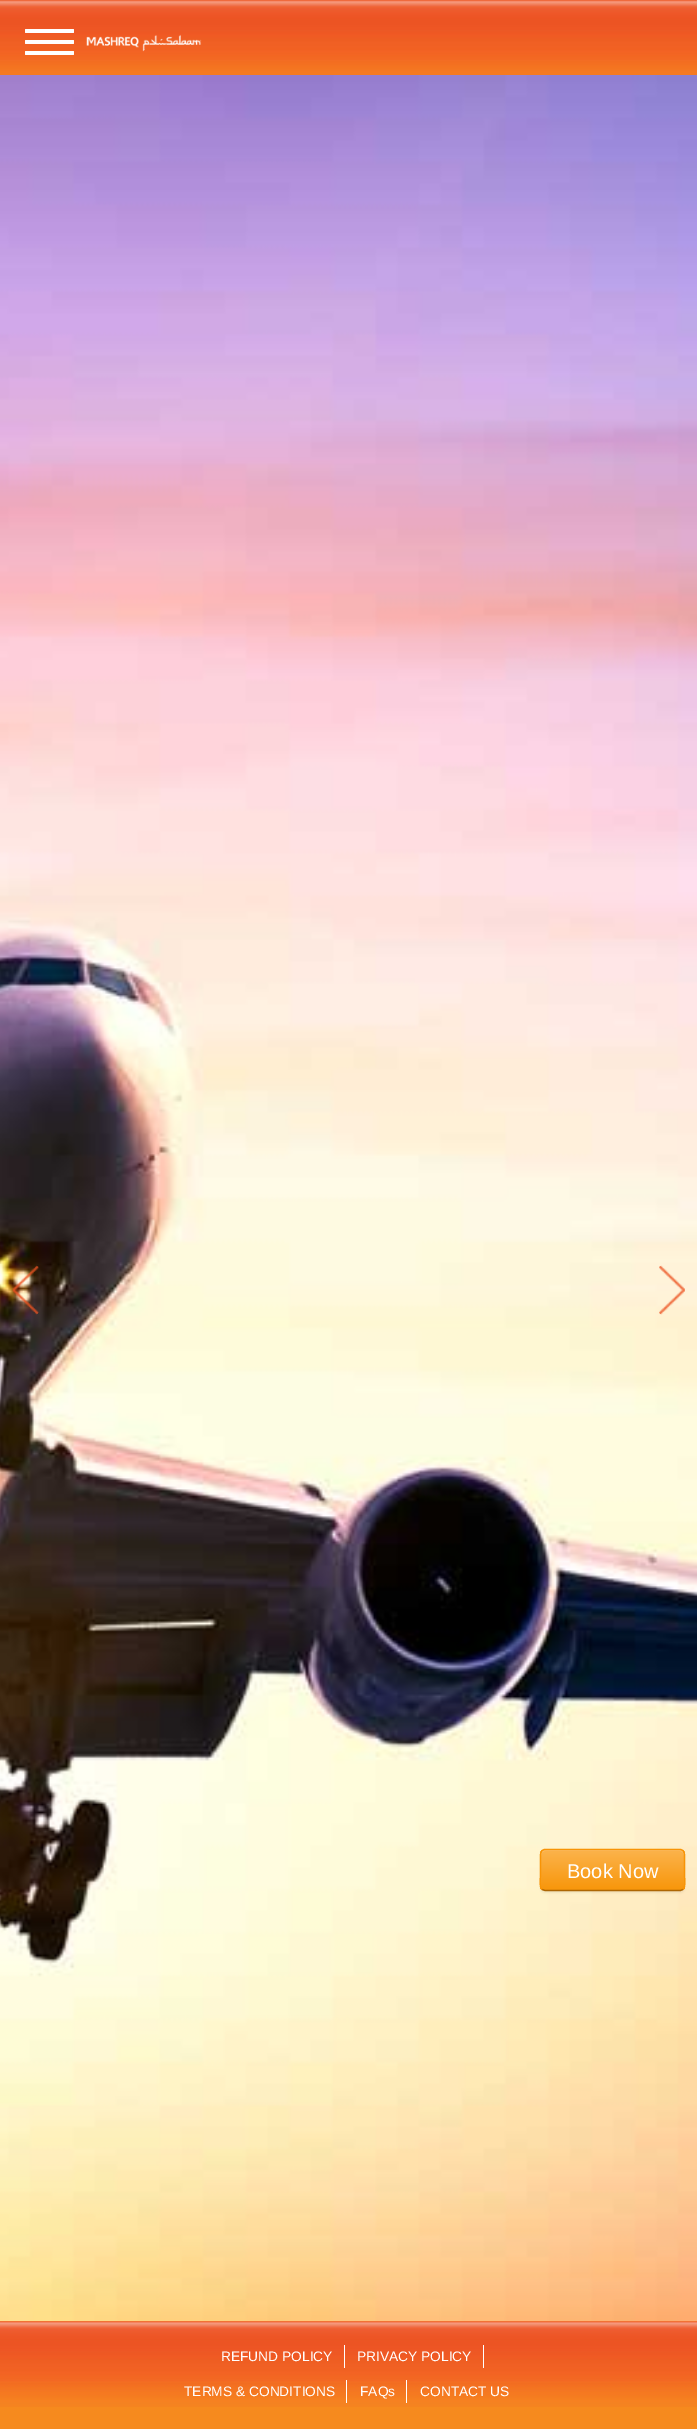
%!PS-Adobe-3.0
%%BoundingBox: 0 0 697 2429
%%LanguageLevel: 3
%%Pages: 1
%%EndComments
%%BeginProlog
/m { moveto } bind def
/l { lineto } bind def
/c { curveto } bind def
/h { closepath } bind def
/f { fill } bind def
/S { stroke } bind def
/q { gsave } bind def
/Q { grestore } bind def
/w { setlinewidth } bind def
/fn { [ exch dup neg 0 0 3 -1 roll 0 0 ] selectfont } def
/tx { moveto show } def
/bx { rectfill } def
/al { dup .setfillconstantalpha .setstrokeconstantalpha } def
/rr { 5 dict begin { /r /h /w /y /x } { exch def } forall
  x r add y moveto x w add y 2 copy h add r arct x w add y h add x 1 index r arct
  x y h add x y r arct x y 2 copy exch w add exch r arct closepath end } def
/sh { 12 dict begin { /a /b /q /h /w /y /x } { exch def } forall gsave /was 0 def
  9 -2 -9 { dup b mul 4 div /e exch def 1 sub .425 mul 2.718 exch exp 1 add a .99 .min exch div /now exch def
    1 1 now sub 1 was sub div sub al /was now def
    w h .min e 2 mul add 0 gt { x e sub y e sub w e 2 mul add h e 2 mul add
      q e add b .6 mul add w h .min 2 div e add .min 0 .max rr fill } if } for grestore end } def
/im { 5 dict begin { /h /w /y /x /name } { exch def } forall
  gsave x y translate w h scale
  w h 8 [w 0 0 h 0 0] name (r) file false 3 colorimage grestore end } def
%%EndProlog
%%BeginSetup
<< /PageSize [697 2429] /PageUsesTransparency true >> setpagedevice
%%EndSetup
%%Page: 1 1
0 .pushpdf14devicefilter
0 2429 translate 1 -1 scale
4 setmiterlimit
1 setgray
0 0 697 2429 bx
(image0.raw) 0 0 697 75 im
25 29 49 4 1 rr f
25 40 49 4 1 rr f
25 51 49 4 1 rr f
(image1.raw) 86 34 116 18 im
(image4.raw) 0 75 697 2246 im
(image2.raw) 12 1265 27 50 im
(image3.raw) 659 1265 26 50 im
0 setgray
540 1850 145 43 5 1 0.05 sh
q
540 1849 145 42 5 rr clip newpath
q 540 1850 m 685 1850 l 685 1890 l 540 1890 l h clip newpath
<< /ShadingType 2 /ColorSpace /DeviceRGB /Coords [613 1850 613 1890] /Extend [true true] /Function << /FunctionType 2 /Domain [0 1] /C0 [0.984 0.702 0.298] /C1 [0.973 0.588 0.039] /N 1 >> >> shfill Q
Q
0.2 al
1 setgray
545 1851 m 680 1851 l 682 1851 684 1853 684 1855 c 684 1854 l 684 1852 682 1850 680 1850 c 545 1850 l 543 1850 541 1852 541 1854 c 541 1855 l 541 1853 543 1851 545 1851 c h f
1 al
0.678 0.404 0.016 setrgbcolor
1.2 w
683 1889.5 m 680.5 1890.5 l 567.5 1890.5 l 545 1890.5 l 542 1889.5 l S
0.973 0.58 0.024 setrgbcolor
542 1889.5 m 539 1886.5 540.5 1878.5 540.5 1875.5 c 540.5 1859 l 540.5 1856 539.5 1849.5 545 1849.5 c 680 1849.5 l 685.5 1849.5 684.5 1856 684.5 1859 c 684.5 1875.5 l 684.5 1878.5 686 1886.5 683 1889.5 c S
/LiberationSans-Regular 20 fn
1 setgray
(Book Now) 567 1878 tx
0.965 0.541 0.118 setrgbcolor
0 2321 697 108 bx
(image5.raw) 0 2321 697 86 im
1 setgray
344 2345 1 23 bx
/LiberationSans-Regular 13.75 fn
(REFUND POLICY) 221 2361 tx
483 2345 1 23 bx
(PRIVACY POLICY) 357 2361 tx
346 2380 1 23 bx
(TERMS & CONDITIONS) 184 2396 tx
406 2380 1 23 bx
(FAQs) 360 2396 tx
(CONTACT US) 420 2396 tx
.poppdf14devicefilter showpage
%%EOF
